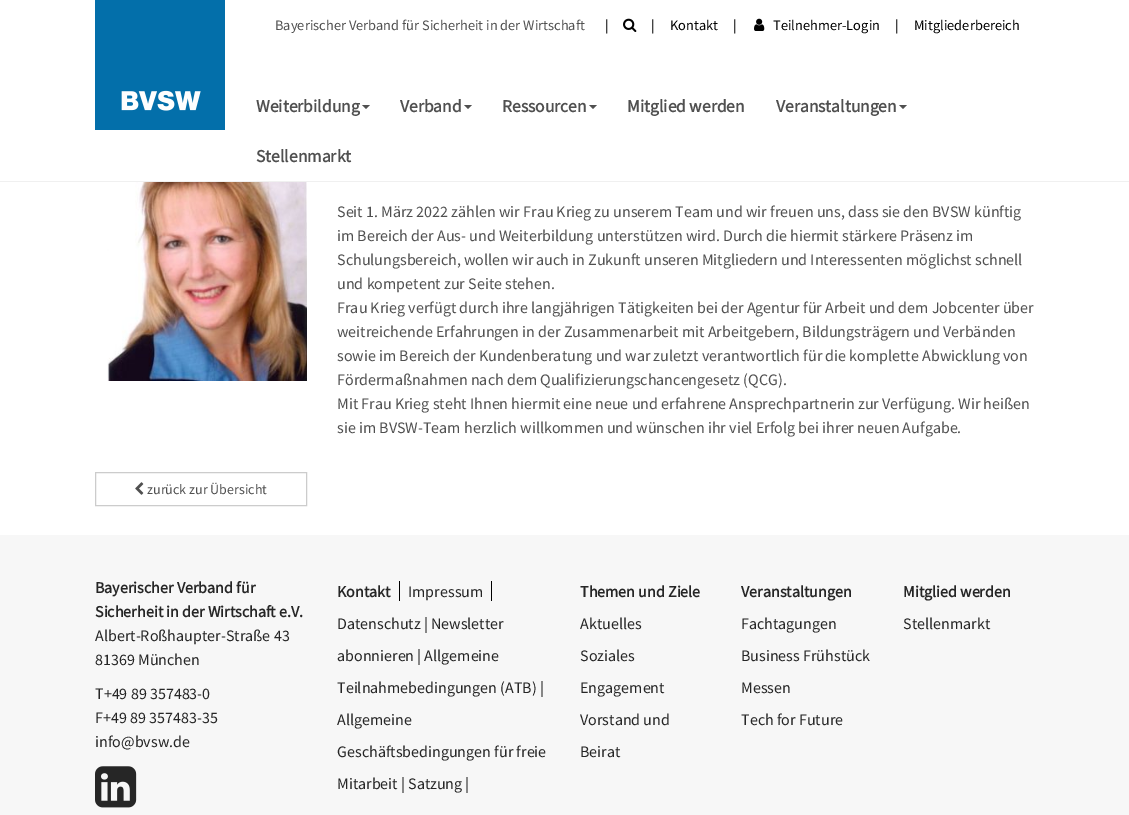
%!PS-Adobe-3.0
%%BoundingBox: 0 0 1129 815
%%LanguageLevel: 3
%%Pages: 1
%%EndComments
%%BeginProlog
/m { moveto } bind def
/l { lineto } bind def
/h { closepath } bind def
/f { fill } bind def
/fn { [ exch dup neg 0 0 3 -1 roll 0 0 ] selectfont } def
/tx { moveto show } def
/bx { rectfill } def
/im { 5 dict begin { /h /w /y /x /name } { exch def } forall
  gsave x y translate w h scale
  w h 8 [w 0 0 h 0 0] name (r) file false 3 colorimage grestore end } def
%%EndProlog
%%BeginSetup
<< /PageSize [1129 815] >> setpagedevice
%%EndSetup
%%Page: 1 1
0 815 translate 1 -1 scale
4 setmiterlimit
1 setgray
0 0 1129 815 bx
0.941 setgray
0 181 1129 1 bx
(image0.raw) 95 0 130 130 im
/SourceSansPro-Regular 14.4 fn
0.314 setgray
(Bayerischer Verband für Sicherheit in der Wirtschaft) 275 30 tx
0 setgray
(|) 605 30 tx
(image1.raw) 623 18 14 14 im
(|) 651 30 tx
(Kontakt) 670 30 tx
(|) 733 30 tx
(image2.raw) 754 18 11 13 im
(Teilnehmer-Login) 773 30 tx
(|) 895 30 tx
(Mitgliederbereich) 914 30 tx
/SourceSansPro-Bold 17.5 fn
0.314 setgray
(Weiterbildung) 256 112 tx
362 105 m 370 105 l 366 109 l h f
(Verband) 400 112 tx
464 105 m 472 105 l 468 109 l h f
(Ressourcen) 502 112 tx
589 105 m 597 105 l 593 109 l h f
(Mitglied werden) 627 112 tx
(Veranstaltungen) 776 112 tx
899 105 m 907 105 l 903 109 l h f
(Stellenmarkt) 256 162 tx
(image3.raw) 107 182 200 199 im
/SourceSansPro-Regular 16 fn
(Seit 1. März 2022 zählen wir Frau Krieg zu unserem Team und wir freuen uns, dass sie den BVSW künftig) 337 217 tx
(im Bereich der Aus- und Weiterbildung unterstützen wird. Durch die hiermit stärkere Präsenz im) 337 241 tx
(Schulungsbereich, wollen wir auch in Zukunft unseren Mitgliedern und Interessenten möglichst schnell) 337 265 tx
(und kompetent zur Seite stehen.) 337 289 tx
(Frau Krieg verfügt durch ihre langjährigen Tätigkeiten bei der Agentur für Arbeit und dem Jobcenter über) 337 313 tx
(weitreichende Erfahrungen in der Zusammenarbeit mit Arbeitgebern, Bildungsträgern und Verbänden) 337 337 tx
(sowie im Bereich der Kundenberatung und war zuletzt verantwortlich für die komplette Abwicklung von) 337 361 tx
(Fördermaßnahmen nach dem Qualifizierungschancengesetz \(QCG\).) 337 385 tx
(Mit Frau Krieg steht Ihnen hiermit eine neue und erfahrene Ansprechpartnerin zur Verfügung. Wir heißen) 337 409 tx
(sie im BVSW-Team herzlich willkommen und wünschen ihr viel Erfolg bei ihrer neuen Aufgabe.) 337 433 tx
0.8 setgray
95.5 472.5 211 33 rectstroke
(image4.raw) 135 482 9 13 im
/SourceSansPro-Regular 14 fn
0.314 setgray
(zurück zur Übersicht) 147 494 tx
0.969 setgray
0 535 1129 280 bx
/SourceSansPro-Bold 16 fn
0.149 setgray
(Bayerischer Verband für) 95 593 tx
(Sicherheit in der Wirtschaft e.V.) 95 617 tx
/SourceSansPro-Regular 16 fn
(Albert-Roßhaupter-Straße 43) 95 641 tx
(81369 München) 95 665 tx
(T+49 89 357483-0) 95 699 tx
(F+49 89 357483-35) 95 723 tx
(info@bvsw.de) 95 747 tx
(image5.raw) 95 766 42 42 im
/SourceSansPro-Bold 16 fn
(Kontakt) 337 597 tx
0 setgray
399 581 1 20 bx
/SourceSansPro-Regular 16 fn
0.149 setgray
(Impressum) 408 597 tx
0 setgray
491 581 1 20 bx
0.149 setgray
(Datenschutz | Newsletter) 337 629 tx
(abonnieren | Allgemeine) 337 661 tx
(Teilnahmebedingungen \(ATB\) |) 337 693 tx
(Allgemeine) 337 725 tx
(Geschäftsbedingungen für freie) 337 757 tx
(Mitarbeit | Satzung |) 337 789 tx
/SourceSansPro-Bold 16 fn
(Themen und Ziele) 580 597 tx
/SourceSansPro-Regular 16 fn
(Aktuelles) 580 629 tx
(Soziales) 580 661 tx
(Engagement) 580 693 tx
(Vorstand und) 580 725 tx
(Beirat) 580 757 tx
/SourceSansPro-Bold 16 fn
(Veranstaltungen) 741 597 tx
/SourceSansPro-Regular 16 fn
(Fachtagungen) 741 629 tx
(Business Frühstück) 741 661 tx
(Messen) 741 693 tx
(Tech for Future) 741 725 tx
/SourceSansPro-Bold 16 fn
(Mitglied werden) 903 597 tx
/SourceSansPro-Regular 16 fn
(Stellenmarkt) 903 629 tx
showpage
%%EOF
